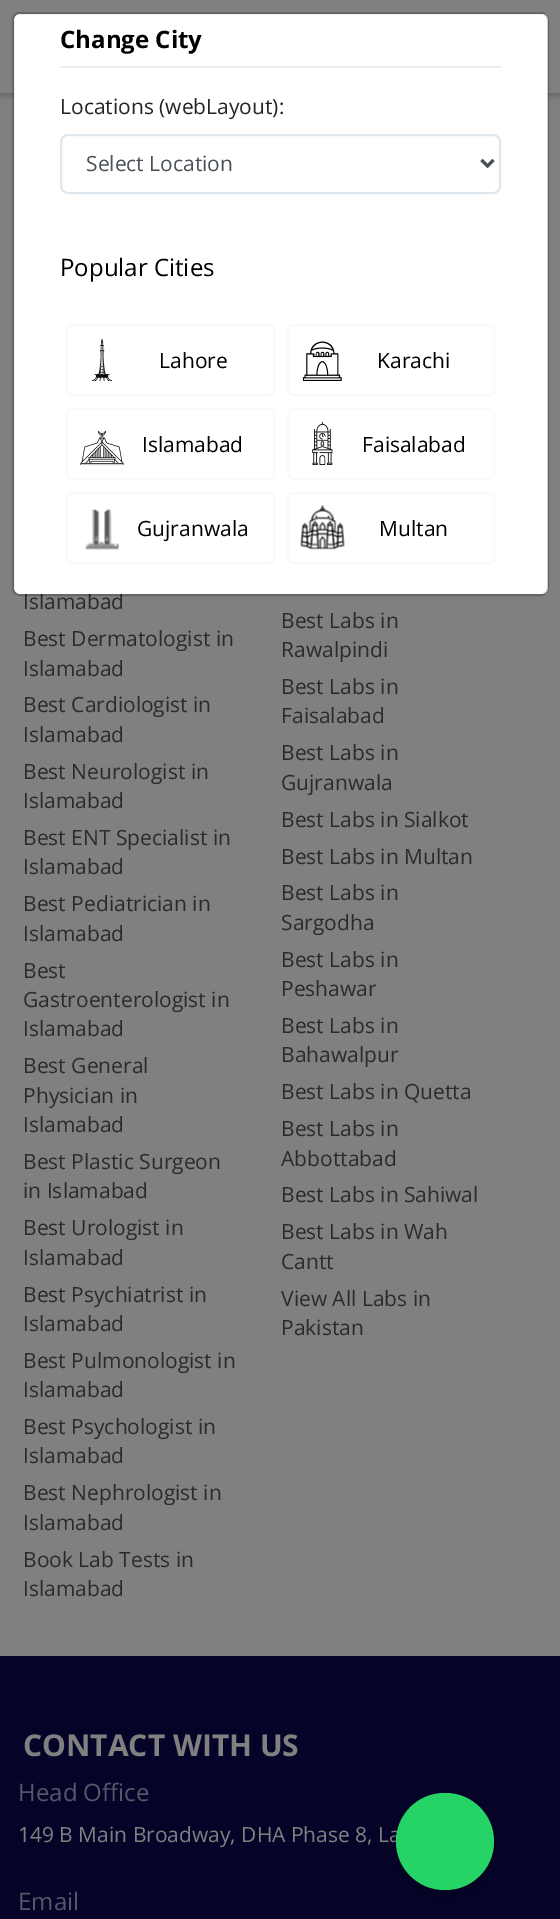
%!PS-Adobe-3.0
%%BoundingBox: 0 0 560 1919
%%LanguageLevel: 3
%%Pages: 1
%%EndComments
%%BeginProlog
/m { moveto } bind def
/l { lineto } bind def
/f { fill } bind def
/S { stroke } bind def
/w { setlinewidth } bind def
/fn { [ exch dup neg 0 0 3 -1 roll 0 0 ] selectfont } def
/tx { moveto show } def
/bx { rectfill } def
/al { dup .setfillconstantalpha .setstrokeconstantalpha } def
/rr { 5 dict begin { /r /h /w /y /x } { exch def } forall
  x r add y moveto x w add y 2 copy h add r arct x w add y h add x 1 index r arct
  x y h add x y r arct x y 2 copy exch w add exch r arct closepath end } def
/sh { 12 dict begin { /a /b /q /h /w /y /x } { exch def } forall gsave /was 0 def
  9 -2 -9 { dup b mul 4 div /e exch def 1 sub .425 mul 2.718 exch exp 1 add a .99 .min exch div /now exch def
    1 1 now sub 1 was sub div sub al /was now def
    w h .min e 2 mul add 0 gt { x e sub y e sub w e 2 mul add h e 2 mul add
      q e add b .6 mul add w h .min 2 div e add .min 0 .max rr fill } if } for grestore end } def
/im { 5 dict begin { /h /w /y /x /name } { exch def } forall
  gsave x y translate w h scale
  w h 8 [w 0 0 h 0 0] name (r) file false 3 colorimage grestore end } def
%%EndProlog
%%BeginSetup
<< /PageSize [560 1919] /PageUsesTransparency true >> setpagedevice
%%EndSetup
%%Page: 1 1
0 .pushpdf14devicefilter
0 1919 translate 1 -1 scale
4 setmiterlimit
0.02 0.012 0.157 setrgbcolor
0 0 560 1919 bx
0.502 setgray
0 93 560 1563 bx
0 setgray
0 3 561 93 0 3 0.2 sh
0.502 setgray
0 0 560 93 bx
/OpenSans-Regular 21 fn
0.169 setgray
(Islamabad) 23 609 tx
1 setgray
14 14 534 580 6 rr f
0.2 al
0 setgray
2 w
13 13 535 582 7 rr S
/OpenSans-Bold 24 fn
1 al
(Change City) 60 48 tx
0.929 setgray
60 66 441 2 bx
/OpenSans-Regular 21 fn
0.129 0.145 0.161 setrgbcolor
(Locations \(webLayout\):) 60 114 tx
0.882 0.91 0.929 setrgbcolor
61 135 439 58 7 rr S
0.286 0.314 0.341 setrgbcolor
3 w
481.5 160 m 487.5 166 l 493.5 160 l S
(Select Location) 86 171 tx
/OpenSans-Regular 24 fn
0 setgray
(Popular Cities) 60 276 tx
0.973 0.976 0.98 setrgbcolor
2 w
67 325 207 70 5 rr S
(image0.raw) 91 338 22 43 im
/OpenSans-Regular 21 fn
0 setgray
(Lahore) 159 368 tx
0.973 0.976 0.98 setrgbcolor
288 325 206 70 5 rr S
(image1.raw) 302 341 40 40 im
0 setgray
(Karachi) 377 368 tx
0.973 0.976 0.98 setrgbcolor
67 409 207 70 5 rr S
(image2.raw) 80 430 44 36 im
0 setgray
(Islamabad) 142 452 tx
0.973 0.976 0.98 setrgbcolor
288 409 206 70 5 rr S
(image3.raw) 312 422 21 43 im
0 setgray
(Faisalabad) 362 452 tx
0.973 0.976 0.98 setrgbcolor
67 493 207 70 5 rr S
(image4.raw) 84 509 36 41 im
0 setgray
(Gujranwala) 137 536 tx
0.973 0.976 0.98 setrgbcolor
288 493 206 70 5 rr S
(image5.raw) 300 505 45 45 im
0 setgray
(Multan) 379 536 tx
0.169 setgray
(Best Dermatologist in) 23 646 tx
(Islamabad) 23 676 tx
(Best Cardiologist in) 23 712 tx
(Islamabad) 23 742 tx
(Best Neurologist in) 23 779 tx
(Islamabad) 23 808 tx
(Best ENT Specialist in) 23 845 tx
(Islamabad) 23 874 tx
(Best Pediatrician in) 23 911 tx
(Islamabad) 23 941 tx
(Best) 23 978 tx
(Gastroenterologist in) 23 1007 tx
(Islamabad) 23 1036 tx
(Best General) 23 1073 tx
(Physician in) 23 1103 tx
(Islamabad) 23 1132 tx
(Best Plastic Surgeon) 23 1169 tx
(in Islamabad) 23 1198 tx
(Best Urologist in) 23 1235 tx
(Islamabad) 23 1265 tx
(Best Psychiatrist in) 23 1302 tx
(Islamabad) 23 1331 tx
(Best Pulmonologist in) 23 1368 tx
(Islamabad) 23 1397 tx
(Best Psychologist in) 23 1434 tx
(Islamabad) 23 1463 tx
(Best Nephrologist in) 23 1500 tx
(Islamabad) 23 1530 tx
(Book Lab Tests in) 23 1567 tx
(Islamabad) 23 1596 tx
(Best Labs in) 281 628 tx
(Rawalpindi) 281 657 tx
(Best Labs in) 281 694 tx
(Faisalabad) 281 723 tx
(Best Labs in) 281 760 tx
(Gujranwala) 281 790 tx
(Best Labs in Sialkot) 281 827 tx
(Best Labs in Multan) 281 864 tx
(Best Labs in) 281 900 tx
(Sargodha) 281 930 tx
(Best Labs in) 281 967 tx
(Peshawar) 281 996 tx
(Best Labs in) 281 1033 tx
(Bahawalpur) 281 1062 tx
(Best Labs in Quetta) 281 1099 tx
(Best Labs in) 281 1136 tx
(Abbottabad) 281 1166 tx
(Best Labs in Sahiwal) 281 1202 tx
(Best Labs in Wah) 281 1239 tx
(Cantt) 281 1269 tx
(View All Labs in) 281 1306 tx
(Pakistan) 281 1335 tx
/OpenSans-Bold 30 fn
0.502 setgray
(CONTACT WITH US) 23 1756 tx
/OpenSans-Regular 24 fn
0.341 0.333 0.4 setrgbcolor
(Head Office) 18 1801 tx
/OpenSans-Regular 21 fn
0.502 setgray
(149 B Main Broadway, DHA Phase 8, La) 18 1842 tx
/OpenSans-Regular 24 fn
0.341 0.333 0.4 setrgbcolor
(Email) 18 1910 tx
0 setgray
396 1799 98 97 48.5 4.5 0.2 sh
0.145 0.827 0.4 setrgbcolor
396 1793 98 97 48.5 rr f
.poppdf14devicefilter showpage
%%EOF
